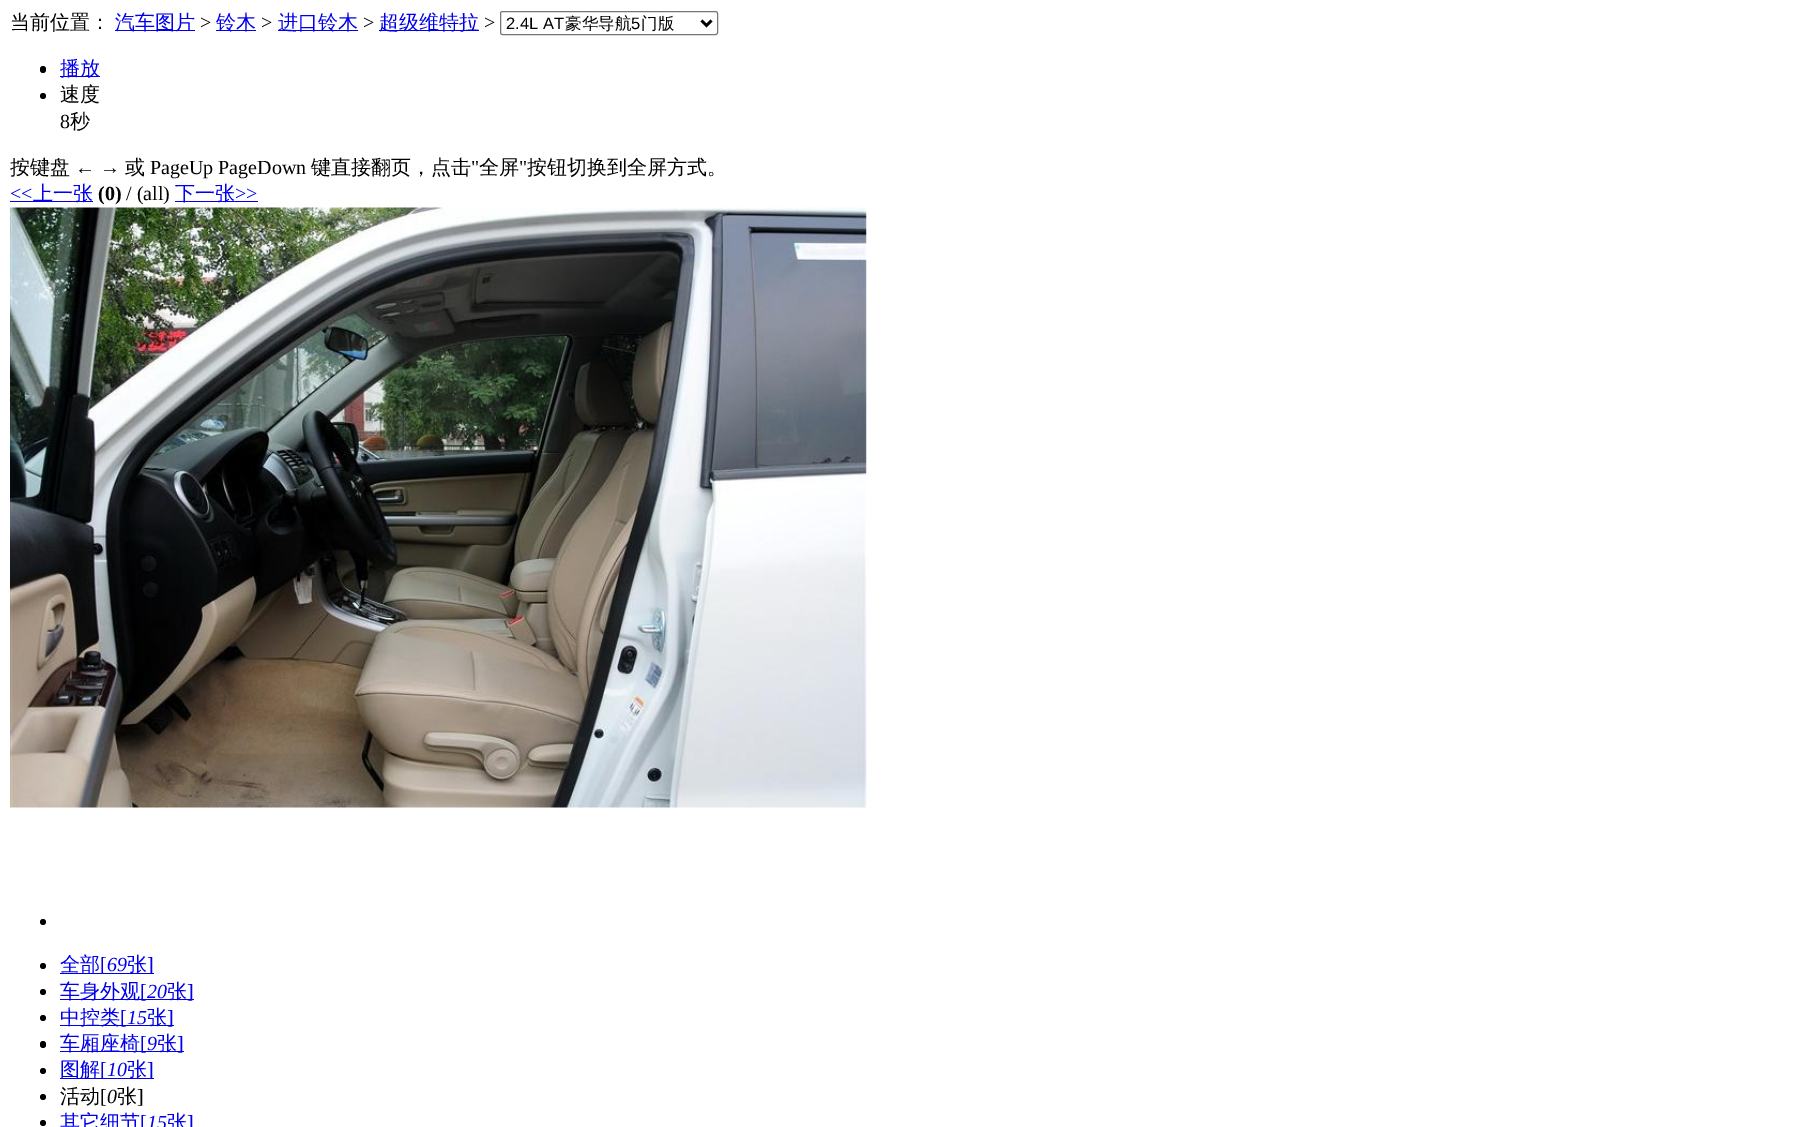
%!PS-Adobe-3.0
%%BoundingBox: 0 0 1810 1127
%%LanguageLevel: 3
%%Pages: 1
%%EndComments
%%BeginProlog
/m { moveto } bind def
/l { lineto } bind def
/f { fill } bind def
/S { stroke } bind def
/w { setlinewidth } bind def
/fn { [ exch dup neg 0 0 3 -1 roll 0 0 ] selectfont } def
/tx { moveto show } def
/bx { rectfill } def
/ci { newpath 0 360 arc closepath } def
/rr { 5 dict begin { /r /h /w /y /x } { exch def } forall
  x r add y moveto x w add y 2 copy h add r arct x w add y h add x 1 index r arct
  x y h add x y r arct x y 2 copy exch w add exch r arct closepath end } def
/im { 5 dict begin { /h /w /y /x /name } { exch def } forall
  gsave x y translate w h scale
  w h 8 [w 0 0 h 0 0] name (r) file false 3 colorimage grestore end } def
%%EndProlog
%%BeginSetup
<< /PageSize [1810 1127] >> setpagedevice
%%EndSetup
%%Page: 1 1
0 1127 translate 1 -1 scale
4 setmiterlimit
1 setgray
0 0 1810 1127 bx
/WenQuanYiZenHei-Medium 20 fn
0 setgray
(当前位置：) 10 29 tx
0 0 0.933 setrgbcolor
115 30 80 1 bx
(汽车图片) 115 29 tx
/LiberationSerif-Regular 20 fn
0 setgray
(>) 200 29 tx
0 0 0.933 setrgbcolor
216 30 40 1 bx
/WenQuanYiZenHei-Medium 20 fn
(铃木) 216 29 tx
/LiberationSerif-Regular 20 fn
0 setgray
(>) 261 29 tx
0 0 0.933 setrgbcolor
278 30 80 1 bx
/WenQuanYiZenHei-Medium 20 fn
(进口铃木) 278 29 tx
/LiberationSerif-Regular 20 fn
0 setgray
(>) 363 29 tx
0 0 0.933 setrgbcolor
379 30 100 1 bx
/WenQuanYiZenHei-Medium 20 fn
(超级维特拉) 379 29 tx
/LiberationSerif-Regular 20 fn
0 setgray
(>) 484 29 tx
0.463 setgray
500.5 11.5 217 23 2 rr S
0 setgray
2.5 w
701.5 20.5 m 706.5 25.5 l 711.5 20.5 l S
/LiberationSans-Regular 16.5 fn
(2.4L AT) 506 29 tx
/WenQuanYiZenHei-Medium 16.5 fn
(豪华导航) 565 29 tx
/LiberationSans-Regular 16.5 fn
(5) 631 29 tx
/WenQuanYiZenHei-Medium 16.5 fn
(门版) 641 29 tx
40 66 6 7 3 rr f
0 0 0.933 setrgbcolor
60 76 40 1 bx
/WenQuanYiZenHei-Medium 20 fn
(播放) 60 75 tx
0 setgray
43 96 3 ci f
(速度) 60 101 tx
/LiberationSerif-Regular 20 fn
(8) 60 128 tx
/WenQuanYiZenHei-Medium 20 fn
(秒) 70 128 tx
(按键盘) 10 174 tx
(或) 125 174 tx
/LiberationSerif-Regular 20 fn
(PageUp PageDown) 150 174 tx
/WenQuanYiZenHei-Medium 20 fn
(键直接翻页，点击) 311 174 tx
/LiberationSerif-Regular 20 fn
(") 471 174 tx
/WenQuanYiZenHei-Medium 20 fn
(全屏) 479 174 tx
/LiberationSerif-Regular 20 fn
(") 519 174 tx
/WenQuanYiZenHei-Medium 20 fn
(按钮切换到全屏方式。) 527 174 tx
/LiberationSerif-Regular 20 fn
(← →) 75 174 tx
0 0 0.933 setrgbcolor
(<<) 10 200 tx
10 201 83 1 bx
/WenQuanYiZenHei-Medium 20 fn
(上一张) 33 200 tx
/LiberationSerif-Bold 20 fn
0 setgray
(\(0\)) 98 200 tx
/LiberationSerif-Regular 20 fn
(/ \(all\)) 126 200 tx
0 0 0.933 setrgbcolor
175 201 83 1 bx
/WenQuanYiZenHei-Medium 20 fn
(下一张) 175 200 tx
/LiberationSerif-Regular 20 fn
(>>) 235 200 tx
(image0.raw) 10 207 857 601 im
0 setgray
43 922 3 ci f
43 966 3 ci f
0 0 0.933 setrgbcolor
60 973 94 1 bx
/WenQuanYiZenHei-Medium 20 fn
(全部) 60 971 tx
/LiberationSerif-Regular 20 fn
([) 100 971 tx
/LiberationSerif-Italic 20 fn
(69) 107 971 tx
/WenQuanYiZenHei-Medium 20 fn
(张) 127 971 tx
/LiberationSerif-Regular 20 fn
(]) 147 971 tx
0 setgray
43 992 3 ci f
0 0 0.933 setrgbcolor
60 999 134 1 bx
/WenQuanYiZenHei-Medium 20 fn
(车身外观) 60 998 tx
/LiberationSerif-Regular 20 fn
([) 140 998 tx
/LiberationSerif-Italic 20 fn
(20) 147 998 tx
/WenQuanYiZenHei-Medium 20 fn
(张) 167 998 tx
/LiberationSerif-Regular 20 fn
(]) 187 998 tx
0 setgray
43 1018 3 ci f
0 0 0.933 setrgbcolor
60 1025 114 1 bx
/WenQuanYiZenHei-Medium 20 fn
(中控类) 60 1024 tx
/LiberationSerif-Regular 20 fn
([) 120 1024 tx
/LiberationSerif-Italic 20 fn
(15) 127 1024 tx
/WenQuanYiZenHei-Medium 20 fn
(张) 147 1024 tx
/LiberationSerif-Regular 20 fn
(]) 167 1024 tx
0 setgray
40 1041 6 7 3 rr f
0 0 0.933 setrgbcolor
60 1051 124 1 bx
/WenQuanYiZenHei-Medium 20 fn
(车厢座椅) 60 1050 tx
/LiberationSerif-Regular 20 fn
([) 140 1050 tx
/LiberationSerif-Italic 20 fn
(9) 147 1050 tx
/WenQuanYiZenHei-Medium 20 fn
(张) 157 1050 tx
/LiberationSerif-Regular 20 fn
(]) 177 1050 tx
0 setgray
43 1071 3 ci f
0 0 0.933 setrgbcolor
60 1078 94 1 bx
/WenQuanYiZenHei-Medium 20 fn
(图解) 60 1076 tx
/LiberationSerif-Regular 20 fn
([) 100 1076 tx
/LiberationSerif-Italic 20 fn
(10) 107 1076 tx
/WenQuanYiZenHei-Medium 20 fn
(张) 127 1076 tx
/LiberationSerif-Regular 20 fn
(]) 147 1076 tx
0 setgray
43 1097 3 ci f
/WenQuanYiZenHei-Medium 20 fn
(活动) 60 1103 tx
/LiberationSerif-Regular 20 fn
([) 100 1103 tx
/LiberationSerif-Italic 20 fn
(0) 107 1103 tx
/WenQuanYiZenHei-Medium 20 fn
(张) 117 1103 tx
/LiberationSerif-Regular 20 fn
(]) 137 1103 tx
43 1123 3 ci f
/WenQuanYiZenHei-Medium 20 fn
0 0 0.933 setrgbcolor
(其它细节) 60 1129 tx
/LiberationSerif-Regular 20 fn
([) 140 1129 tx
/LiberationSerif-Italic 20 fn
(15) 147 1129 tx
/WenQuanYiZenHei-Medium 20 fn
(张) 167 1129 tx
/LiberationSerif-Regular 20 fn
(]) 187 1129 tx
showpage
%%EOF
